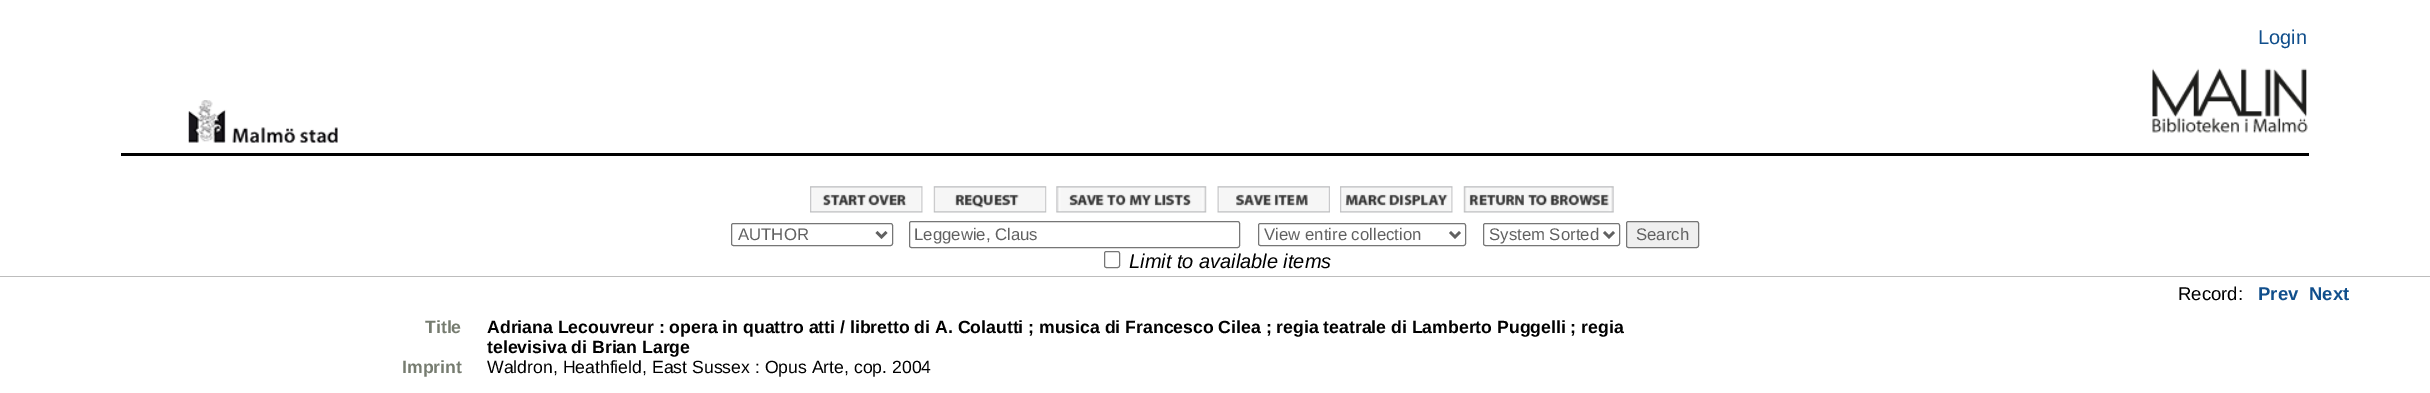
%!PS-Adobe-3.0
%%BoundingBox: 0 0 2430 393
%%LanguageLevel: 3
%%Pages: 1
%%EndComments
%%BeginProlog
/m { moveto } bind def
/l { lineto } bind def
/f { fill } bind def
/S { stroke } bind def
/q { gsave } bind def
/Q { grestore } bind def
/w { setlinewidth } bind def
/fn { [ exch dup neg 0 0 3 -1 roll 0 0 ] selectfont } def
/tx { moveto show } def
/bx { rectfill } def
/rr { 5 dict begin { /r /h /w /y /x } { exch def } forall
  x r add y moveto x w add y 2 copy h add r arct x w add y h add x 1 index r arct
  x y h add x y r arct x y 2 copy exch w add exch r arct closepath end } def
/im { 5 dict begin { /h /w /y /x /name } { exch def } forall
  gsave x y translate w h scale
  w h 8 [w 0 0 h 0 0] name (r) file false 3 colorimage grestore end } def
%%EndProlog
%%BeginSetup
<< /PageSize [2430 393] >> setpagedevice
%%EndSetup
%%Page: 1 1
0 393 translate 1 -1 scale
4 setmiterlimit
1 setgray
0 0 2430 393 bx
/LiberationSans-Regular 20 fn
0.067 0.31 0.549 setrgbcolor
(Login) 2258 44 tx
(image0.raw) 188 100 150 43 im
(image1.raw) 2152 68 156 65 im
0 setgray
121 153 2188 3 bx
(image2.raw) 810 186 113 27 im
(image3.raw) 933 186 114 27 im
(image4.raw) 1056 186 151 27 im
(image5.raw) 1217 186 113 27 im
(image6.raw) 1340 186 113 27 im
(image7.raw) 1463 186 151 27 im
0.741 setgray
0 276 2430 1 bx
0.463 setgray
731.5 223.5 161 22 2 rr S
0.38 setgray
2.5 w
876.5 232 m 881.5 237 l 886.5 232 l S
/LiberationSans-Regular 16.75 fn
(AUTHOR) 738 240 tx
0.463 setgray
1 w
909.5 221.5 330 26 2 rr S
0.38 setgray
(Leggewie, Claus) 914 240 tx
0.463 setgray
1258.5 223.5 207 22 2 rr S
0.38 setgray
2.5 w
1450 232 m 1455 237 l 1460 232 l S
(View entire collection) 1264 240 tx
0.463 setgray
1 w
1483.5 223.5 136 22 2 rr S
0.38 setgray
2.5 w
1604 232 m 1609 237 l 1614 232 l S
(System Sorted) 1489 240 tx
0.937 setgray
1626.5 221.5 72 26 2 rr q f Q
0.463 setgray
1 w
S
0.38 setgray
(Search) 1636 240 tx
0.463 setgray
1104.5 251.5 15 16 2 rr S
/LiberationSans-Italic 20 fn
0 setgray
(Limit to available items) 1129 268 tx
/LiberationSans-Regular 18.5 fn
(Record:) 2178 300 tx
/LiberationSans-Bold 18.5 fn
0.067 0.31 0.549 setrgbcolor
(Prev) 2258 300 tx
(Next) 2309 300 tx
/LiberationSans-Bold 17.65 fn
0.463 0.486 0.439 setrgbcolor
(Title) 425 333 tx
0 setgray
(Adriana Lecouvreur : opera in quattro atti / libretto di A. Colautti ; musica di Francesco Cilea ; regia teatrale di Lamberto Puggelli ; regia) 487 333 tx
(televisiva di Brian Large) 487 353 tx
0.463 0.486 0.439 setrgbcolor
(Imprint) 402 373 tx
/LiberationSans-Regular 17.65 fn
0 setgray
(Waldron, Heathfield, East Sussex : Opus Arte, cop. 2004) 487 373 tx
showpage
%%EOF
